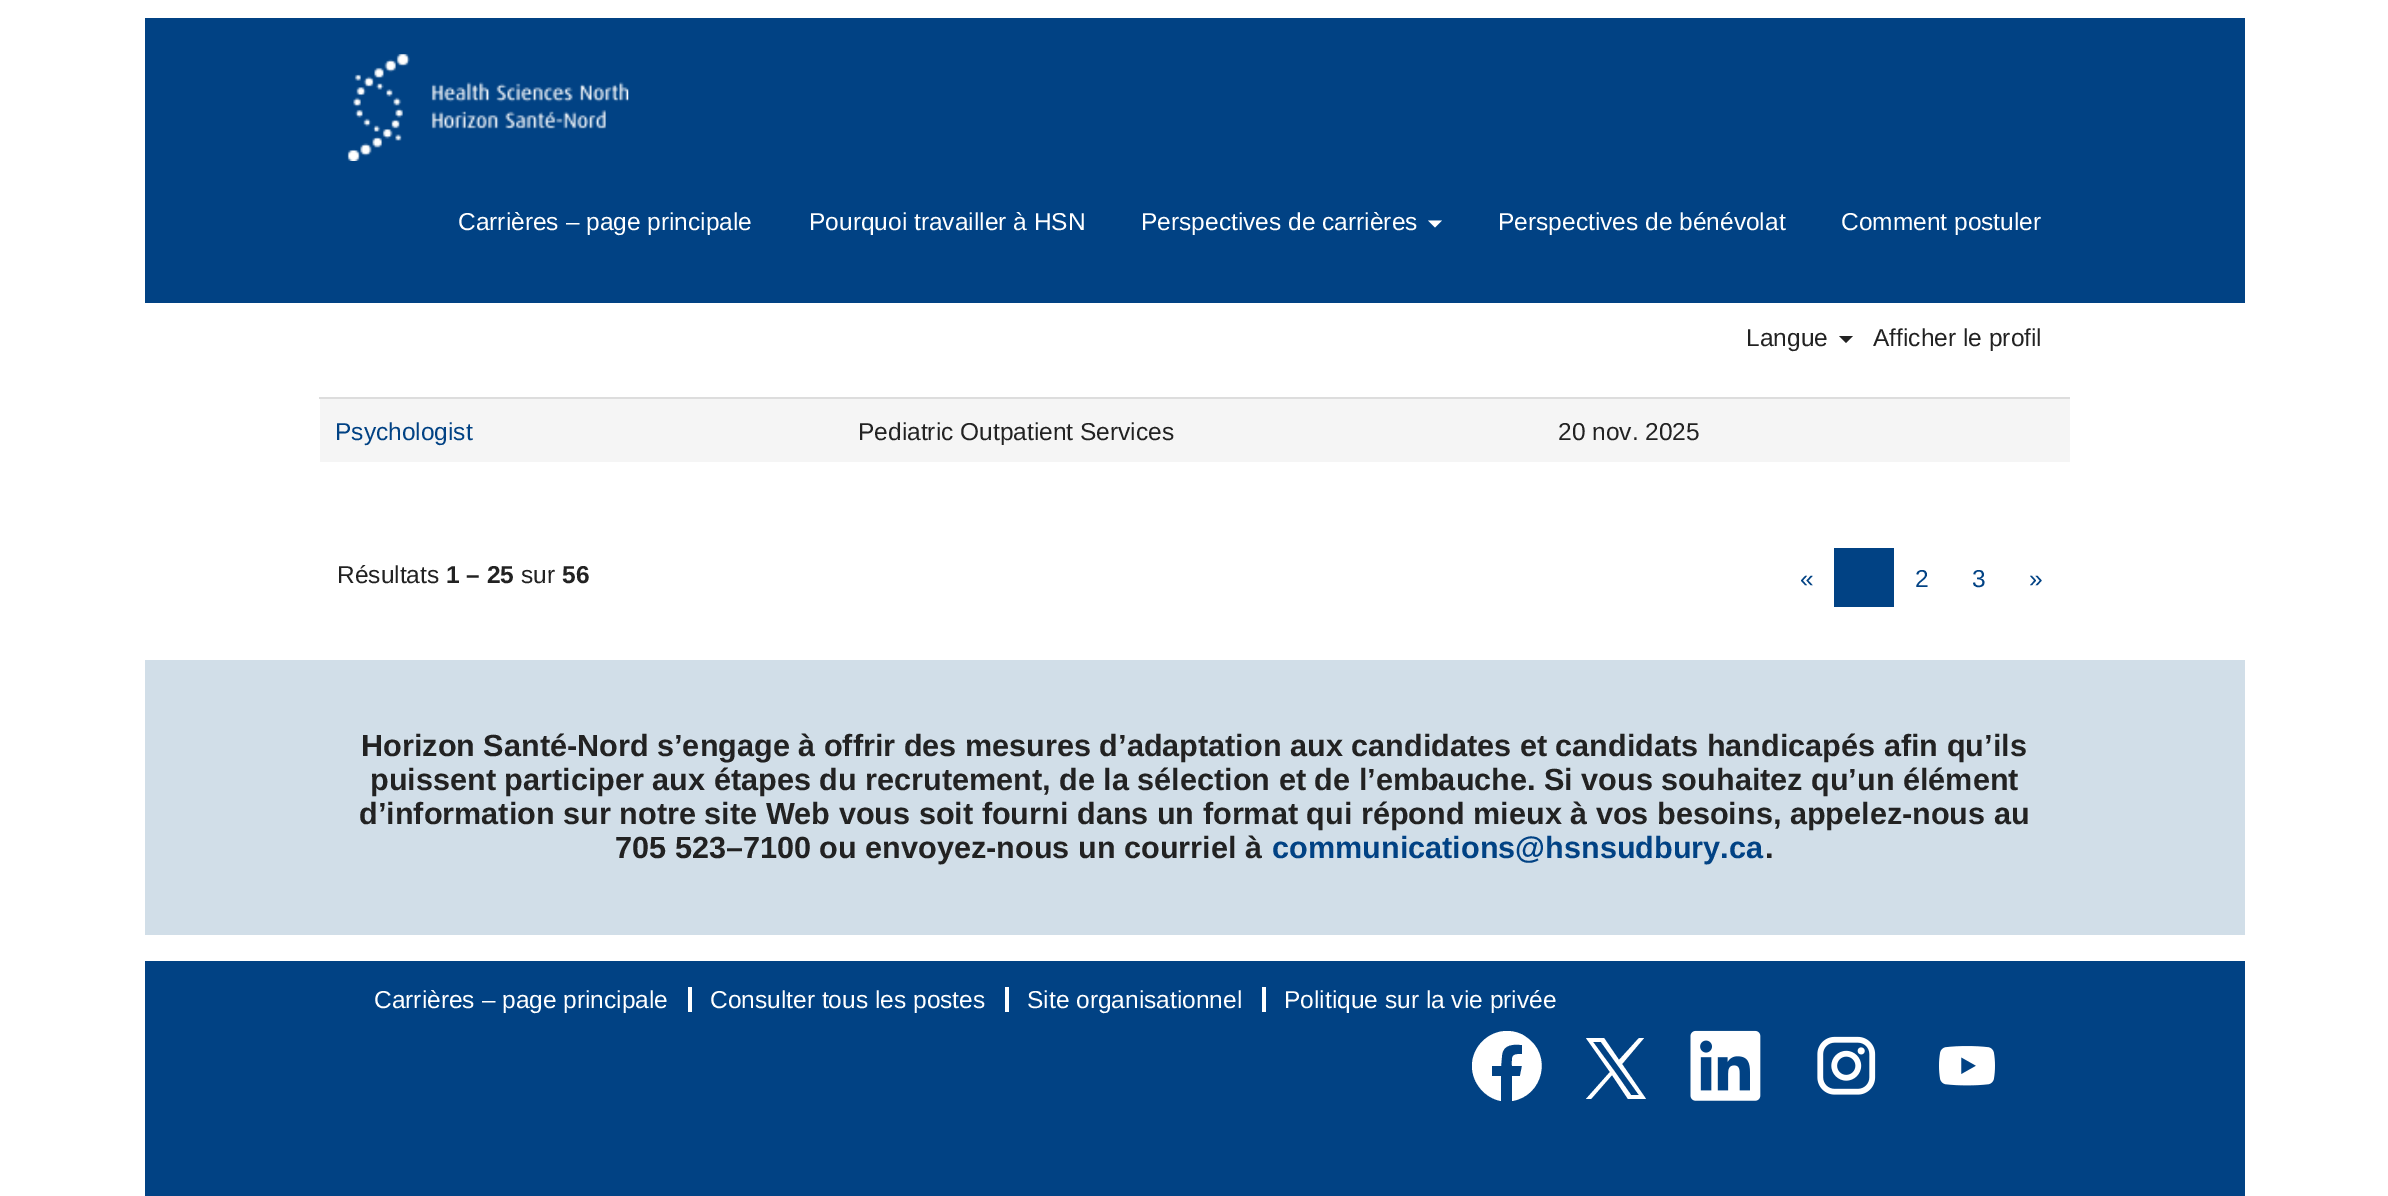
%!PS-Adobe-3.0
%%BoundingBox: 0 0 2388 1196
%%LanguageLevel: 3
%%Pages: 1
%%EndComments
%%BeginProlog
/m { moveto } bind def
/l { lineto } bind def
/c { curveto } bind def
/h { closepath } bind def
/f { fill } bind def
/fn { [ exch dup neg 0 0 3 -1 roll 0 0 ] selectfont } def
/tx { moveto show } def
/bx { rectfill } def
/im { 5 dict begin { /h /w /y /x /name } { exch def } forall
  gsave x y translate w h scale
  w h 8 [w 0 0 h 0 0] name (r) file false 3 colorimage grestore end } def
%%EndProlog
%%BeginSetup
<< /PageSize [2388 1196] >> setpagedevice
%%EndSetup
%%Page: 1 1
0 1196 translate 1 -1 scale
4 setmiterlimit
1 setgray
0 0 2388 1196 bx
0.004 0.259 0.518 setrgbcolor
145 18 2100 285 bx
(image0.raw) 347 54 282 107 im
/LiberationSans-Regular 24.5 fn
1 setgray
(Carrières – page principale) 458 230 tx
(Pourquoi travailler à HSN) 809 230 tx
(Perspectives de carrières) 1141 230 tx
1428 220.5 m 1442 220.5 l 1435 227.5 l h f
(Perspectives de bénévolat) 1498 230 tx
(Comment postuler) 1841 230 tx
0.133 setgray
(Langue) 1746 346 tx
1839 336 m 1853 336 l 1846 343 l h f
(Afficher le profil) 1873 346 tx
0.961 setgray
320 399 1750 63 bx
0.004 0.259 0.518 setrgbcolor
(Psychologist) 335 440 tx
0.133 setgray
(Pediatric Outpatient Services) 858 440 tx
0.867 setgray
319 397 1751 2 bx
0.133 setgray
(20 nov. 2025) 1558 440 tx
(Résultats) 337 583 tx
/LiberationSans-Bold 24.5 fn
(1 – 25) 446 583 tx
/LiberationSans-Regular 24.5 fn
(sur) 521 583 tx
/LiberationSans-Bold 24.5 fn
(56) 562 583 tx
/LiberationSans-Regular 24.5 fn
0.004 0.259 0.518 setrgbcolor
(«) 1800 587 tx
1834 548 60 59 bx
(2) 1915 587 tx
(3) 1972 587 tx
(») 2029 587 tx
0.82 0.871 0.91 setrgbcolor
145 660 2100 275 bx
/LiberationSans-Bold 30.62 fn
0.133 setgray
(Horizon Santé-Nord s’engage à offrir des mesures d’adaptation aux candidates et candidats handicapés afin qu’ils) 361 756 tx
(puissent participer aux étapes du recrutement, de la sélection et de l’embauche. Si vous souhaitez qu’un élément) 370 790 tx
(d’information sur notre site Web vous soit fourni dans un format qui répond mieux à vos besoins, appelez-nous au) 359 824 tx
(705 523–7100 ou envoyez-nous un courriel à) 615 858 tx
0.004 0.259 0.518 setrgbcolor
(communications@hsnsudbury.ca) 1272 858 tx
0.133 setgray
(.) 1765 858 tx
0.004 0.259 0.518 setrgbcolor
145 961 2100 235 bx
1 setgray
688 987 4 25 bx
/LiberationSans-Regular 24.5 fn
(Carrières – page principale) 374 1008 tx
1005 987 4 25 bx
(Consulter tous les postes) 710 1008 tx
1262 987 4 25 bx
(Site organisationnel) 1027 1008 tx
(Politique sur la vie privée) 1284 1008 tx
1507 1031 m 1488 1031 1472 1047 1472 1066 c 1472 1083 1485 1098 1501 1101 c 1501 1076 l 1492 1076 l 1492 1066 l 1501 1066 l 1502 1055 l 1503 1044 1514 1044 1522 1045 c 1522 1054 l 1511 1054 1512 1056 1512 1066 c 1522 1066 l 1520 1076 l 1512 1076 l 1512 1101 l 1543 1096 1553 1055 1526 1037 c 1521 1033 1514 1031 1507 1031 c h f
1622 1064 m 1644 1038 l 1639 1038 l 1619 1060 l 1604 1038 l 1586 1038 l 1610 1072 l 1586 1099 l 1591 1099 l 1612 1075 l 1628 1099 l 1646 1099 l h 1615 1072 m 1593 1042 l 1601 1042 l 1639 1095 l 1631 1095 l h f
(image1.raw) 1690 1030 71 71 im
(image2.raw) 1817 1036 59 59 im
(image3.raw) 1939 1046 56 40 im
showpage
%%EOF
